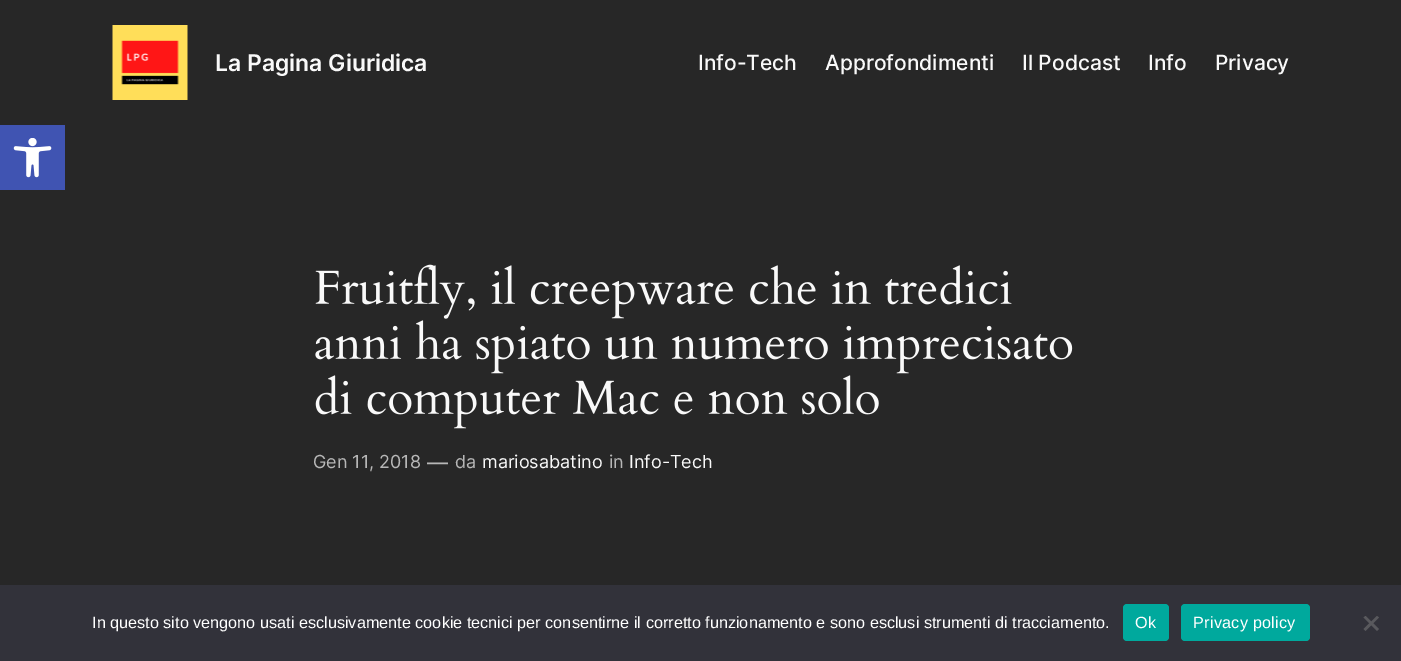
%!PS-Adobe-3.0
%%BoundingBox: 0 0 1401 661
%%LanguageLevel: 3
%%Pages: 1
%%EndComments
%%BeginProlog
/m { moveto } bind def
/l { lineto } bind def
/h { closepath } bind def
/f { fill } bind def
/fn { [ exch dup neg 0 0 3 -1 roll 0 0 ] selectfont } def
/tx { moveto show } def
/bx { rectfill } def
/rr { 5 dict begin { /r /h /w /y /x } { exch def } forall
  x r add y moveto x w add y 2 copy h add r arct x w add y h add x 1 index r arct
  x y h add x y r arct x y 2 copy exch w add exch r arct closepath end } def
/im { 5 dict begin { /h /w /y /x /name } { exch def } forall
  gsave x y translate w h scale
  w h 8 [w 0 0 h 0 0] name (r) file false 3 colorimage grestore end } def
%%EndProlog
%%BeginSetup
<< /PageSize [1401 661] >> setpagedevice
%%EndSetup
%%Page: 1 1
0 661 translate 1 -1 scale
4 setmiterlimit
0.153 setgray
0 0 1401 661 bx
0.251 0.329 0.698 setrgbcolor
0 125 65 65 bx
(image0.raw) 13 138 39 40 im
(image1.raw) 112 25 76 75 im
/Inter-SemiBold 23 fn
0.976 setgray
(La Pagina Giuridica) 215 71 tx
/Inter-Medium 21 fn
(Info-Tech) 698 70 tx
(Approfondimenti) 825 70 tx
(Il Podcast) 1022 70 tx
(Info) 1148 70 tx
(Privacy) 1215 70 tx
(image2.raw) 315 264 697 55 im
(image3.raw) 315 320 758 54 im
(image4.raw) 315 375 564 54 im
/Inter-Regular 18 fn
0.718 setgray
(Gen 11, 2018) 313 468 tx
/Inter-Regular 21 fn
(—) 427 470 tx
/Inter-Regular 18 fn
(da) 455 468 tx
0.976 setgray
(mariosabatino) 482 468 tx
0.718 setgray
(in) 609 468 tx
0.976 setgray
(Info-Tech) 629 468 tx
0.196 0.196 0.227 setrgbcolor
0 585 1401 76 bx
/LiberationSans-Regular 16.25 fn
1 setgray
(In questo sito vengono usati esclusivamente cookie tecnici per consentirne il corretto funzionamento e sono esclusi strumenti di tracciamento.) 92 628 tx
0 0.663 0.616 setrgbcolor
1123 604 46 37 4 rr f
1 setgray
1135 628 m 0.25 0 (Ok) ashow
0 0.663 0.616 setrgbcolor
1181 604 129 37 4 rr f
1 setgray
1193 628 m 0.25 0 (Privacy policy) ashow
0.349 0.349 0.365 setrgbcolor
1377 616 m 1379 617.5 l 1365.5 631 l 1363.5 629 l h f
1363.5 617.5 m 1365.5 616 l 1379 629 l 1377 631 l h f
showpage
%%EOF
